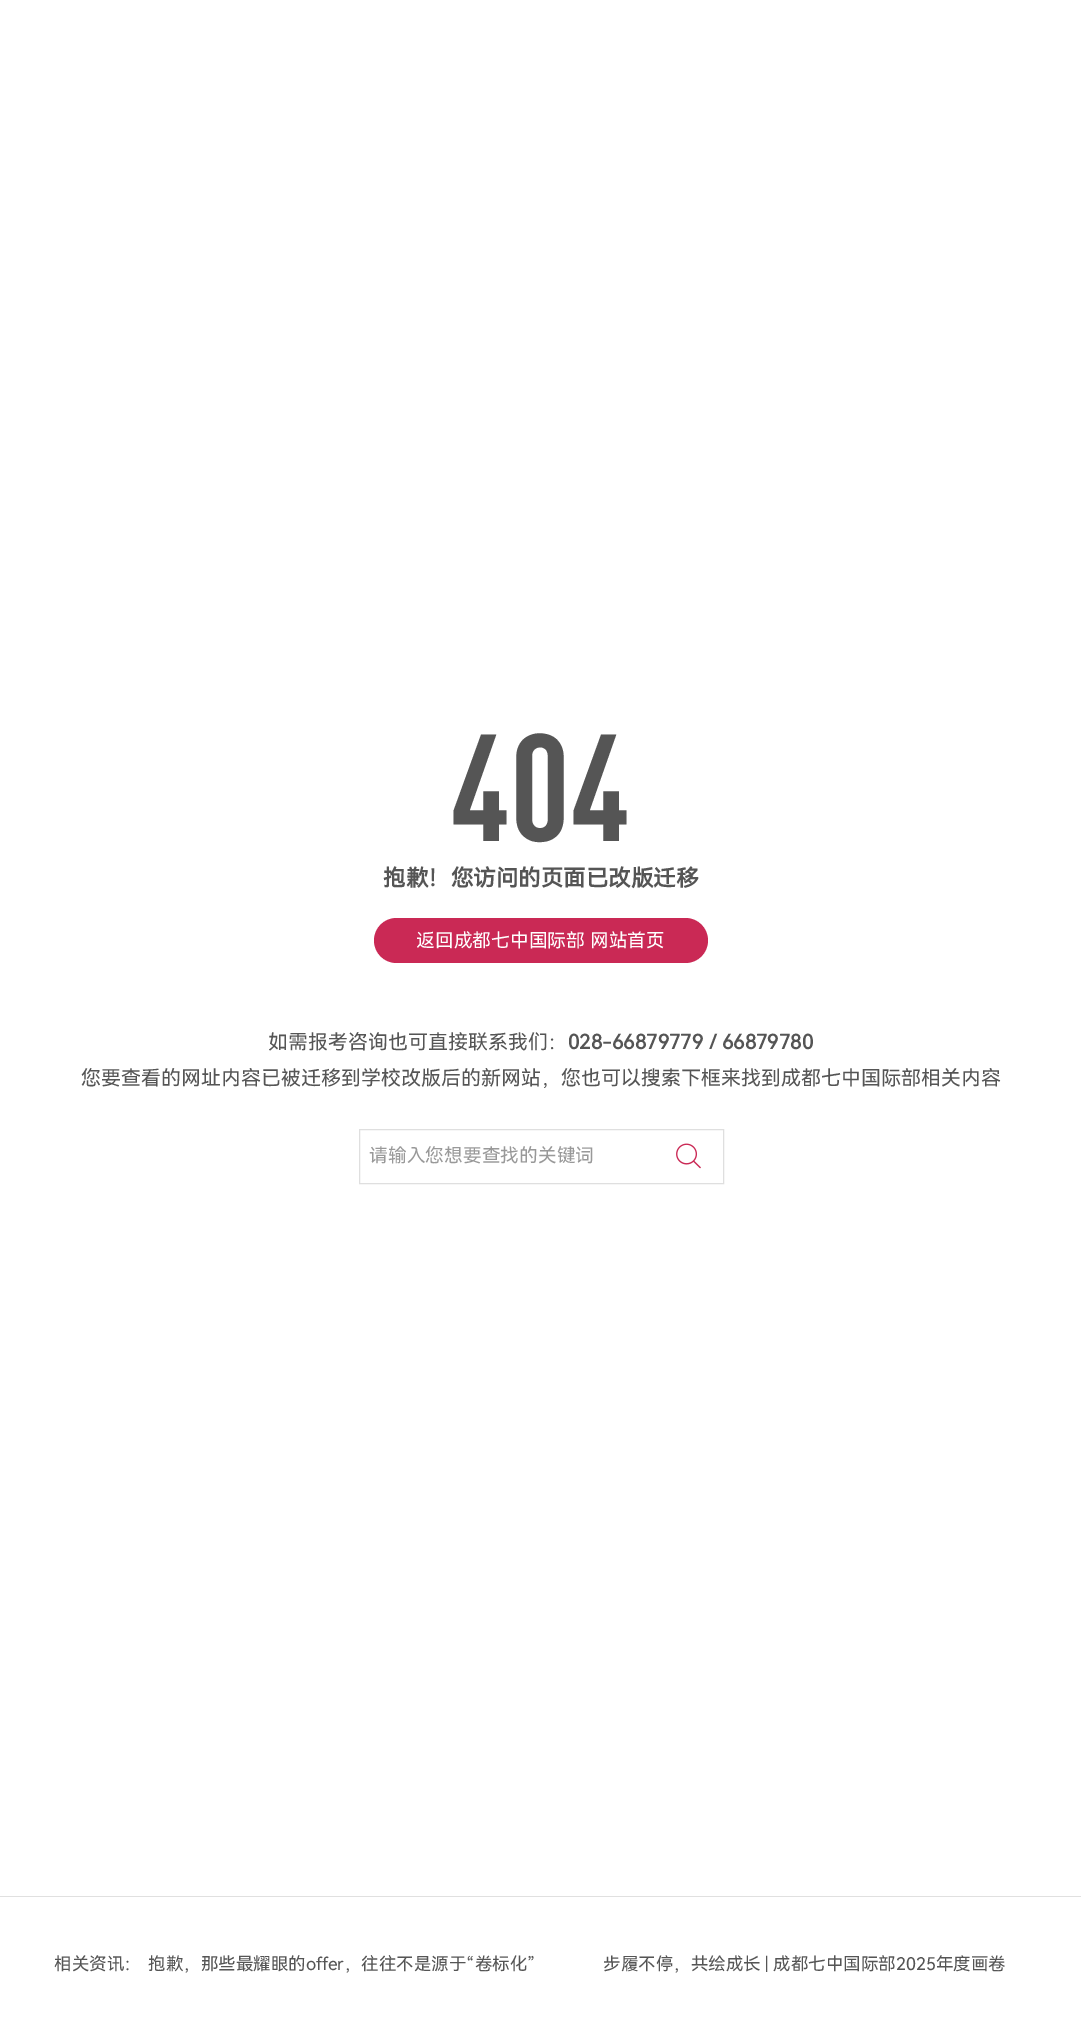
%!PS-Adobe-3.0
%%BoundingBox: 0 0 1081 2036
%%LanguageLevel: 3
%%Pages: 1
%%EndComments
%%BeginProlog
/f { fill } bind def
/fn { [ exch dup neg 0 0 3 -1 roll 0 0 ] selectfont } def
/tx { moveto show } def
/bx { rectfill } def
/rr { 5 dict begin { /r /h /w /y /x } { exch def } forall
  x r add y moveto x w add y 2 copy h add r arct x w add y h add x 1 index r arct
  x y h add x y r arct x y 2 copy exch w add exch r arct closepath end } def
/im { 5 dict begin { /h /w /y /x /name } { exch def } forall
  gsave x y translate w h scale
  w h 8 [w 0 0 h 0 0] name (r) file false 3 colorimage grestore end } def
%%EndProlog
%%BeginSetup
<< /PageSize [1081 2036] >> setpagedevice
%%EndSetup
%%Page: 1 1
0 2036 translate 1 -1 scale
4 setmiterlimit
1 setgray
0 0 1081 2036 bx
/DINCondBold-Bold 150 fn
0.333 setgray
(404) 450 841 tx
/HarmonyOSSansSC-Bold 22.5 fn
(抱歉！您访问的页面已改版迁移) 383 886 tx
0.792 0.161 0.333 setrgbcolor
374 918 334 45 22.5 rr f
/HarmonyOSSansSC-Regular 18.75 fn
1 setgray
(返回成都七中国际部 网站首页) 416 947 tx
/HarmonyOSSansSC-Regular 20 fn
0.333 setgray
(如需报考咨询也可直接联系我们：) 268 1049 tx
/HarmonyOSSansSC-Bold 20 fn
(028-66879779 / 66879780) 568 1049 tx
/HarmonyOSSansSC-Regular 20 fn
(您要查看的网址内容已被迁移到学校改版后的新网站，您也可以搜索下框来找到成都七中国际部相关内容) 81 1085 tx
0.875 setgray
359.5 1129.5 364 54 rectstroke
/HarmonyOSSansSC-Regular 18.75 fn
0.6 setgray
(请输入您想要查找的关键词) 369 1162 tx
(image0.raw) 676 1143 25 26 im
0.878 setgray
0 1896 1081 1 bx
/HarmonyOSSansSC-Regular 17.5 fn
0.333 setgray
(相关资讯：) 54 1970 tx
(抱歉，那些最耀眼的offer，往往不是源于“卷标化”) 148 1970 tx
(步履不停，共绘成长 | 成都七中国际部2025年度画卷) 603 1970 tx
showpage
%%EOF
